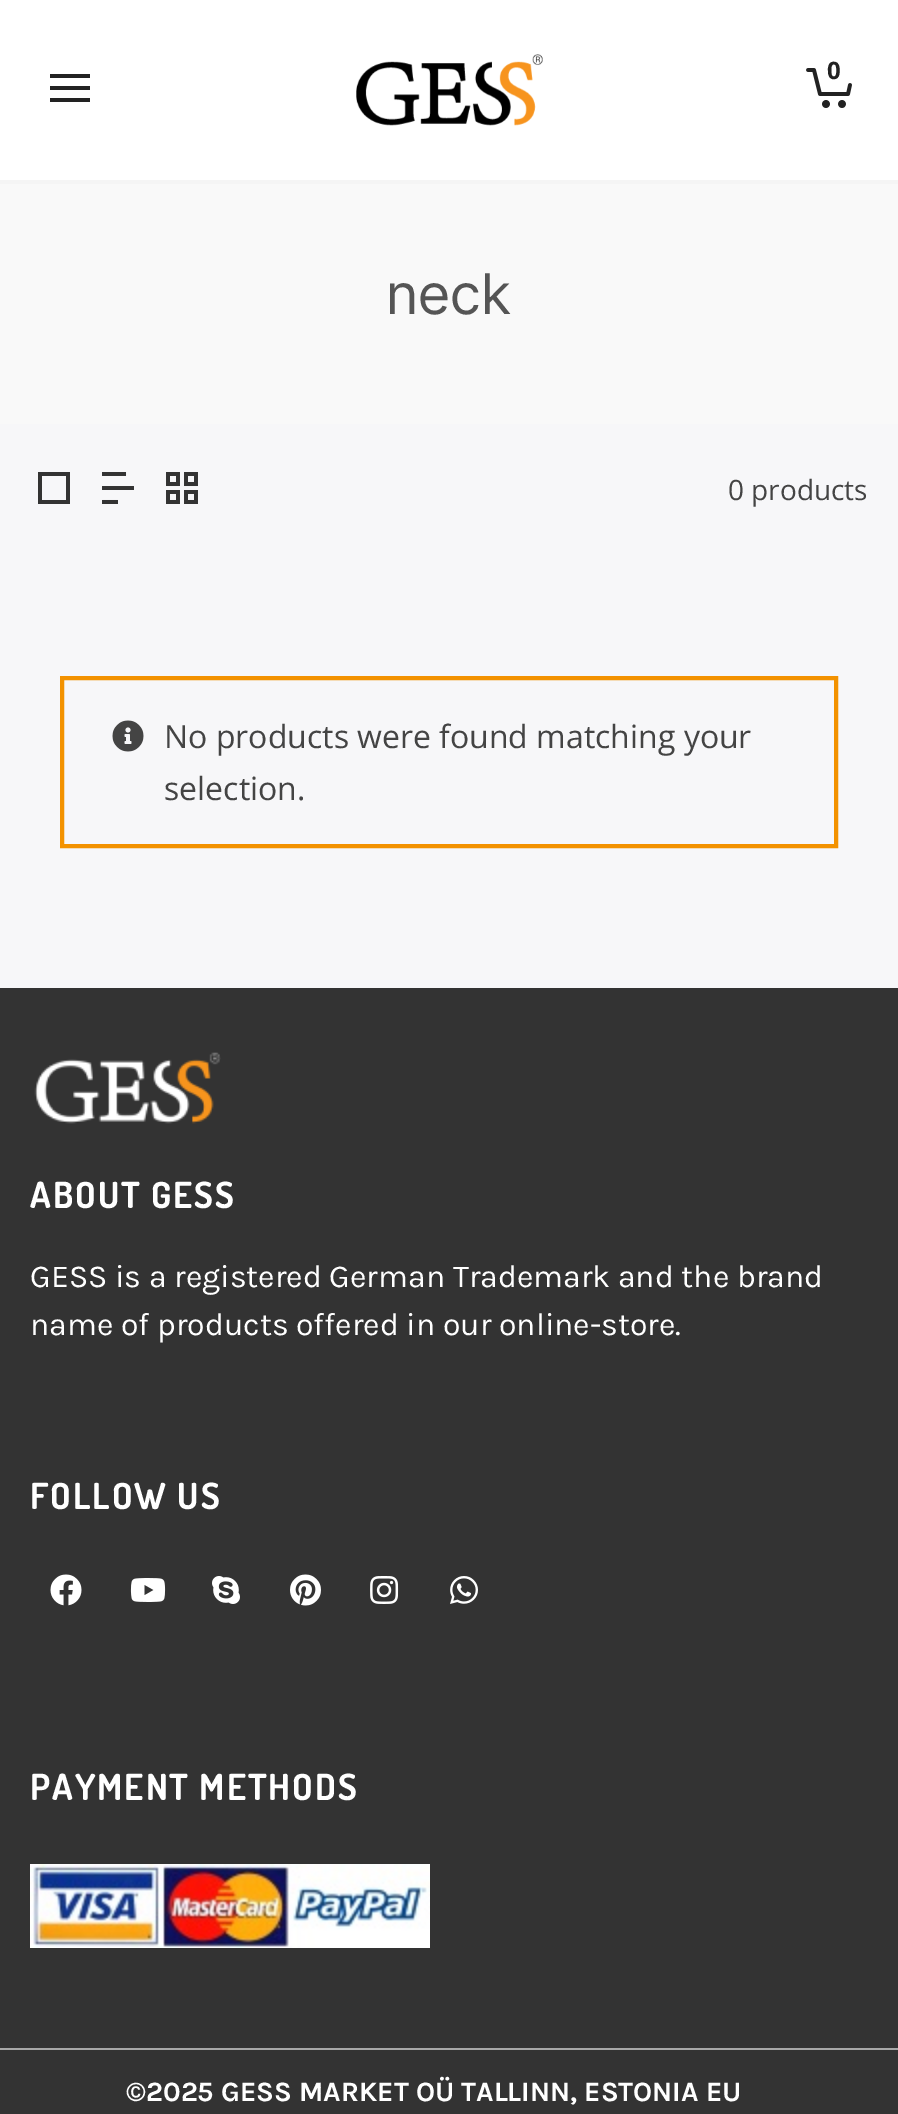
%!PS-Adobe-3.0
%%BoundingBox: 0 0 898 2114
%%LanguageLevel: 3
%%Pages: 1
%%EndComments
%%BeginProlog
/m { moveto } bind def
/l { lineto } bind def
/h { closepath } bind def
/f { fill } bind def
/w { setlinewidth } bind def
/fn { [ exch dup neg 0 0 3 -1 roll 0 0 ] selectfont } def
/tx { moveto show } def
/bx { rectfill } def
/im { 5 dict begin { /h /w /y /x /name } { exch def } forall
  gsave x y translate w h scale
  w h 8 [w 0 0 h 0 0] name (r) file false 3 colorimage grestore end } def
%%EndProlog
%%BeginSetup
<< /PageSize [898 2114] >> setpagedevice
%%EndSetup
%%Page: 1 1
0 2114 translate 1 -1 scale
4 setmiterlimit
1 setgray
0 0 898 2114 bx
0.961 setgray
0 180 898 4 bx
(image0.raw) 356 54 187 72 im
(image1.raw) 806 68 46 40 im
/OpenSans-Bold 24 fn
0.133 setgray
(0) 827 79 tx
50 86 40 4 bx
50 74 40 4 bx
50 98 40 4 bx
0.969 0.969 0.976 setrgbcolor
0 424 898 564 bx
0.976 setgray
0 184 898 240 bx
/InterTight-Regular 56 fn
0.333 setgray
387 314 m 2 0 (neck) ashow
0.2 setgray
66 476 m 66 500 l 42 500 l 42 476 l h 70 472 m 38 472 l 38 504 l 70 504 l h f
(image2.raw) 102 472 32 32 im
(image3.raw) 166 472 32 32 im
/OpenSans-Regular 28 fn
0.267 setgray
(0 products) 728 500 tx
0.953 0.573 0 setrgbcolor
4 w
62 678 774 168 rectstroke
(image4.raw) 112 720 32 32 im
/OpenSans-Regular 32 fn
0.267 setgray
(No products were found matching your) 164 748 tx
(selection.) 164 800 tx
0.2 setgray
0 988 898 1060 bx
(image5.raw) 34 1052 187 72 im
/Dosis-Bold 36 fn
1 setgray
30 1208 m 2 0 (ABOUT GESS) ashow
/Karla-Regular 32 fn
(GESS is a registered German Trademark and the brand) 30 1287 tx
(name of products offered in our online-store.) 30 1335 tx
/Dosis-Bold 36 fn
30 1509 m 2 0 (FOLLOW US) ashow
(image6.raw) 50 1574 32 32 im
(image7.raw) 130 1578 36 24 im
(image8.raw) 212 1576 28 28 im
(image9.raw) 290 1574 31 32 im
(image10.raw) 370 1576 29 28 im
(image11.raw) 450 1576 28 28 im
30 1800 m 2 0 (PAYMENT METHODS) ashow
(image12.raw) 30 1864 400 84 im
0.2 setgray
0 2050 898 64 bx
0.659 setgray
0 2048 898 2 bx
/Karla-Bold 28 fn
1 setgray
(©2025 GESS MARKET OÜ TALLINN, ESTONIA EU) 126 2101 tx
showpage
%%EOF
